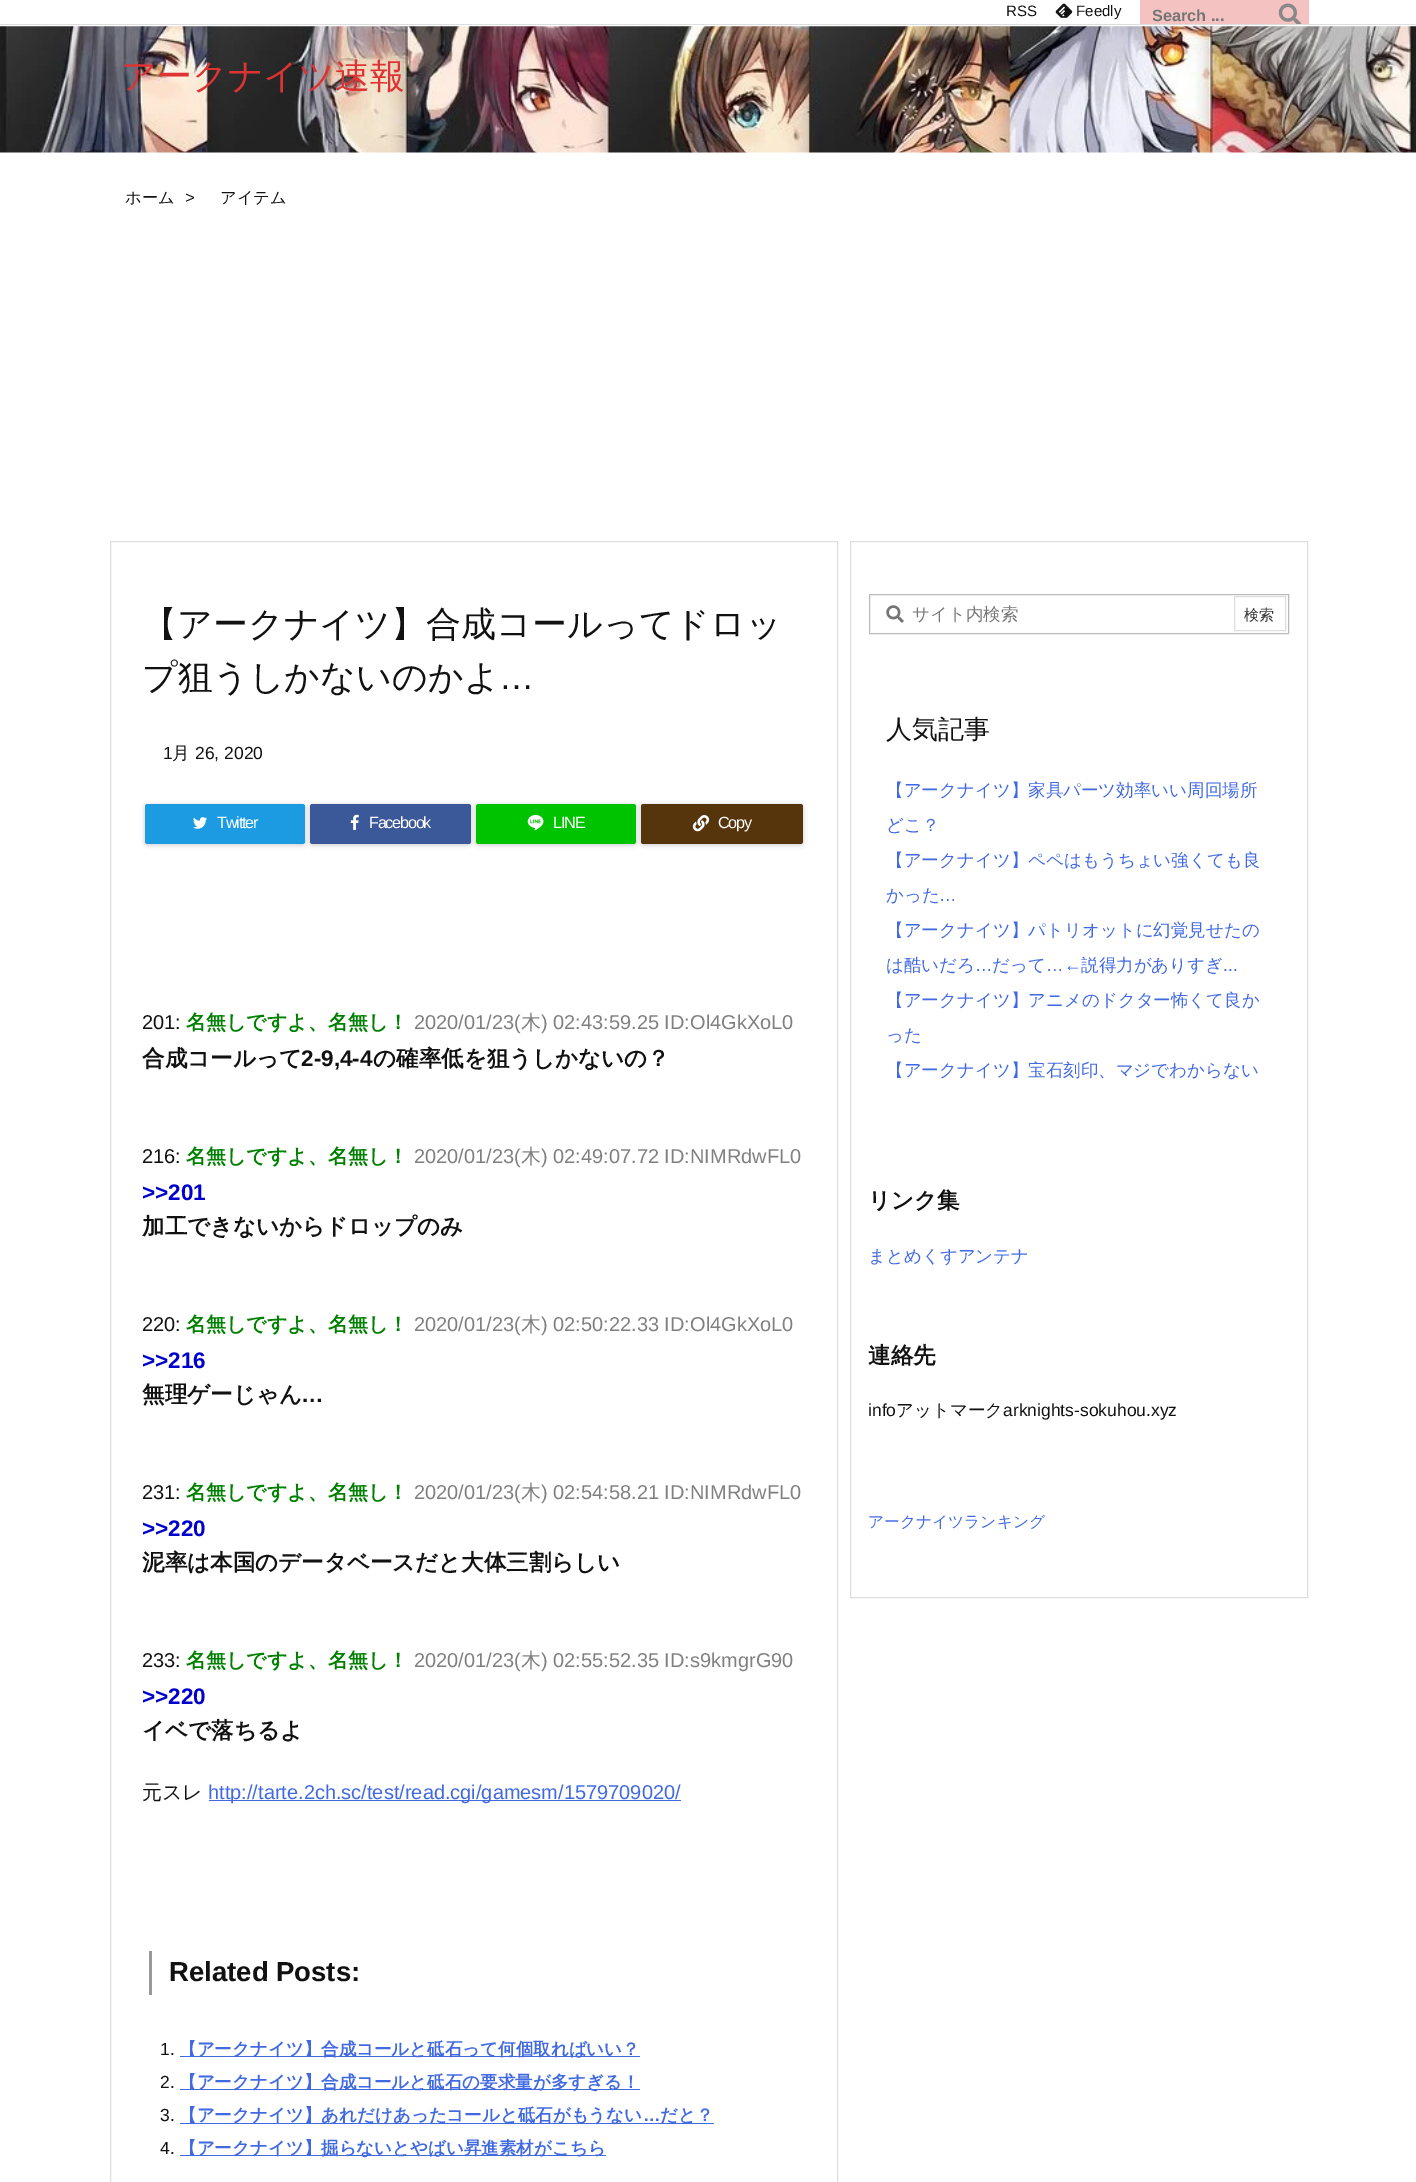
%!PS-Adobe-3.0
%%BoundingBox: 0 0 1416 2182
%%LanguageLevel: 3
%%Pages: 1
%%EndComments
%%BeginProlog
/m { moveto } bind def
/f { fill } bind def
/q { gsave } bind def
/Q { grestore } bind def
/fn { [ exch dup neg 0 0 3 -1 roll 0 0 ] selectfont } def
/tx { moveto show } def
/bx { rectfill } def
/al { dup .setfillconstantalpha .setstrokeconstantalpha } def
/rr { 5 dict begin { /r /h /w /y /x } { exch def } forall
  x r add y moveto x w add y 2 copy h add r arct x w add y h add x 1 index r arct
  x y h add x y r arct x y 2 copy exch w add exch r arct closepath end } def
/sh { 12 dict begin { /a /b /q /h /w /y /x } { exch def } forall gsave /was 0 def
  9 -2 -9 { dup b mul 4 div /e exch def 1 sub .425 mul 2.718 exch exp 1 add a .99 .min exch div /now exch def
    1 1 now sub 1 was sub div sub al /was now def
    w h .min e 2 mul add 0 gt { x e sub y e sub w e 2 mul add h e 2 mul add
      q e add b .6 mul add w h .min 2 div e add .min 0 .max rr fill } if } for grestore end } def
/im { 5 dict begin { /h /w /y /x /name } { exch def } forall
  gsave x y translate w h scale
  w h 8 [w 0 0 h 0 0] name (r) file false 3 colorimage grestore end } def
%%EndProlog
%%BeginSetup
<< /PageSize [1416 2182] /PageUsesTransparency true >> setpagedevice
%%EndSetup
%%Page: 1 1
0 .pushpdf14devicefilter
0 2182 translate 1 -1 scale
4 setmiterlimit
1 setgray
0 0 1416 2182 bx
0.867 setgray
0 24 1416 1 bx
/LiberationSans-Regular 15 fn
0.067 setgray
(RSS) 1006 16 tx
(image0.raw) 1055 3 18 15 im
(Feedly) 1076 16 tx
0.961 0.761 0.761 setrgbcolor
1140 0 169 24 bx
q
1153 6 143 18 rectclip
/LiberationSans-Bold 16.25 fn
0.459 setgray
(Search ...) 1152 21 tx
Q
(image1.raw) 1278 3 24 21 im
(image2.raw) 0 26 1416 127 im
/WenQuanYiZenHei-Medium 35 fn
0.867 0.2 0.2 setrgbcolor
(アークナイツ速報) 121 88 tx
/WenQuanYiZenHei-Medium 16.25 fn
0.067 setgray
(ホーム) 125 203 tx
/LiberationSans-Italic 16.25 fn
(>) 185 203 tx
/WenQuanYiZenHei-Medium 16.25 fn
(アイテム) 220 203 tx
0.867 setgray
110.5 541.5 727 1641 rectstroke
/WenQuanYiZenHei-Medium 35 fn
0.067 setgray
(【アークナイツ】合成コールってドロッ) 142 636 tx
(プ狙うしかないのかよ) 142 689 tx
/LiberationSans-Regular 35 fn
(…) 499 689 tx
/LiberationSans-Regular 17.5 fn
(1) 163 759 tx
/WenQuanYiZenHei-Medium 17.5 fn
(月) 172 759 tx
/LiberationSans-Regular 17.5 fn
(26, 2020) 195 759 tx
0 setgray
145 805 160 40 2.5 2.5 0.2 sh
0.11 0.608 0.886 setrgbcolor
145 804 160 40 2.5 rr f
(image3.raw) 193 817 14 12 im
/LiberationSans-Regular 16.25 fn
1 setgray
217 828 m -1.25 0 (Twitter) ashow
0 setgray
310 805 161 40 2.5 2.5 0.2 sh
0.231 0.349 0.596 setrgbcolor
310 804 161 40 2.5 rr f
(image4.raw) 350 814 9 16 im
1 setgray
369 828 m -1.25 0 (Facebook) ashow
0 setgray
476 805 160 40 2.5 2.5 0.2 sh
0 0.765 0 setrgbcolor
476 804 160 40 2.5 rr f
(image5.raw) 527 815 17 16 im
1 setgray
553 828 m -1.25 0 (LINE) ashow
0 setgray
641 805 162 40 2.5 2.5 0.2 sh
0.337 0.208 0.051 setrgbcolor
641 804 162 40 2.5 rr f
(image6.raw) 692 815 18 17 im
1 setgray
718 828 m -1.25 0 (Copy) ashow
/LiberationSans-Regular 20 fn
0.067 setgray
(201:) 142 1029 tx
/WenQuanYiZenHei-Bold 20 fn
0 0.502 0 setrgbcolor
(名無しですよ、名無し！) 186 1029 tx
/LiberationSans-Regular 20 fn
0.502 setgray
(2020/01/23\() 414 1029 tx
/WenQuanYiZenHei-Medium 20 fn
(木) 521 1029 tx
/LiberationSans-Regular 20 fn
(\) 02:43:59.25 ID:Ol4GkXoL0) 541 1029 tx
/WenQuanYiZenHei-Bold 22.5 fn
0.067 setgray
(合成コールって) 142 1066 tx
/LiberationSans-Bold 22.5 fn
(2-9,4-4) 301 1066 tx
/WenQuanYiZenHei-Bold 22.5 fn
(の確率低を狙うしかないの？) 373 1066 tx
/LiberationSans-Regular 20 fn
(216:) 142 1163 tx
/WenQuanYiZenHei-Bold 20 fn
0 0.502 0 setrgbcolor
(名無しですよ、名無し！) 186 1163 tx
/LiberationSans-Regular 20 fn
0.502 setgray
(2020/01/23\() 414 1163 tx
/WenQuanYiZenHei-Medium 20 fn
(木) 521 1163 tx
/LiberationSans-Regular 20 fn
(\) 02:49:07.72 ID:NIMRdwFL0) 541 1163 tx
/LiberationSans-Bold 22.5 fn
0 0 0.804 setrgbcolor
(>>201) 142 1200 tx
/WenQuanYiZenHei-Bold 22.5 fn
0.067 setgray
(加工できないからドロップのみ) 142 1234 tx
/LiberationSans-Regular 20 fn
(220:) 142 1331 tx
/WenQuanYiZenHei-Bold 20 fn
0 0.502 0 setrgbcolor
(名無しですよ、名無し！) 186 1331 tx
/LiberationSans-Regular 20 fn
0.502 setgray
(2020/01/23\() 414 1331 tx
/WenQuanYiZenHei-Medium 20 fn
(木) 521 1331 tx
/LiberationSans-Regular 20 fn
(\) 02:50:22.33 ID:Ol4GkXoL0) 541 1331 tx
/LiberationSans-Bold 22.5 fn
0 0 0.804 setrgbcolor
(>>216) 142 1368 tx
/WenQuanYiZenHei-Bold 22.5 fn
0.067 setgray
(無理ゲーじゃん) 142 1402 tx
/LiberationSans-Bold 22.5 fn
(…) 301 1402 tx
/LiberationSans-Regular 20 fn
(231:) 142 1499 tx
/WenQuanYiZenHei-Bold 20 fn
0 0.502 0 setrgbcolor
(名無しですよ、名無し！) 186 1499 tx
/LiberationSans-Regular 20 fn
0.502 setgray
(2020/01/23\() 414 1499 tx
/WenQuanYiZenHei-Medium 20 fn
(木) 521 1499 tx
/LiberationSans-Regular 20 fn
(\) 02:54:58.21 ID:NIMRdwFL0) 541 1499 tx
/LiberationSans-Bold 22.5 fn
0 0 0.804 setrgbcolor
(>>220) 142 1536 tx
/WenQuanYiZenHei-Bold 22.5 fn
0.067 setgray
(泥率は本国のデータベースだと大体三割らしい) 142 1570 tx
/LiberationSans-Regular 20 fn
(233:) 142 1667 tx
/WenQuanYiZenHei-Bold 20 fn
0 0.502 0 setrgbcolor
(名無しですよ、名無し！) 186 1667 tx
/LiberationSans-Regular 20 fn
0.502 setgray
(2020/01/23\() 414 1667 tx
/WenQuanYiZenHei-Medium 20 fn
(木) 521 1667 tx
/LiberationSans-Regular 20 fn
(\) 02:55:52.35 ID:s9kmgrG90) 541 1667 tx
/LiberationSans-Bold 22.5 fn
0 0 0.804 setrgbcolor
(>>220) 142 1704 tx
/WenQuanYiZenHei-Bold 22.5 fn
0.067 setgray
(イベで落ちるよ) 142 1738 tx
/WenQuanYiZenHei-Medium 20 fn
(元スレ) 142 1799 tx
0.255 0.412 0.882 setrgbcolor
209 1800 472 1 bx
/LiberationSans-Regular 20 fn
(http://tarte.2ch.sc/test/read.cgi/gamesm/1579709020/) 208 1799 tx
0.6 setgray
149 1951 3 44 bx
/LiberationSans-Bold 27.5 fn
0.067 setgray
(Related Posts:) 169 1981 tx
/LiberationSans-Regular 17.5 fn
(1.) 160 2055 tx
0.255 0.412 0.882 setrgbcolor
180 2056 460 1 bx
/WenQuanYiZenHei-Bold 17.5 fn
(【アークナイツ】合成コールと砥石って何個取ればいい？) 179 2055 tx
/LiberationSans-Regular 17.5 fn
0.067 setgray
(2.) 160 2088 tx
0.255 0.412 0.882 setrgbcolor
180 2089 460 1 bx
/WenQuanYiZenHei-Bold 17.5 fn
(【アークナイツ】合成コールと砥石の要求量が多すぎる！) 179 2088 tx
/LiberationSans-Regular 17.5 fn
0.067 setgray
(3.) 160 2121 tx
0.255 0.412 0.882 setrgbcolor
180 2123 534 1 bx
/WenQuanYiZenHei-Bold 17.5 fn
(【アークナイツ】あれだけあったコールと砥石がもうない) 179 2121 tx
/LiberationSans-Bold 17.5 fn
(…) 643 2121 tx
/WenQuanYiZenHei-Bold 17.5 fn
(だと？) 660 2121 tx
/LiberationSans-Regular 17.5 fn
0.067 setgray
(4.) 160 2154 tx
0.255 0.412 0.882 setrgbcolor
180 2155 426 1 bx
/WenQuanYiZenHei-Bold 17.5 fn
(【アークナイツ】掘らないとやばい昇進素材がこちら) 179 2154 tx
0.867 setgray
850.5 541.5 457 1056 rectstroke
0.733 setgray
869.5 594.5 419 39 rectstroke
(image7.raw) 886 605 18 18 im
/WenQuanYiZenHei-Medium 17.5 fn
0.459 setgray
(サイト内検索) 912 620 tx
0.867 setgray
1234.5 596.5 51 34 rectstroke
/WenQuanYiZenHei-Medium 15 fn
0.2 setgray
(検索) 1244 620 tx
/WenQuanYiZenHei-Medium 26 fn
0.067 setgray
(人気記事) 886 738 tx
/WenQuanYiZenHei-Medium 17.5 fn
0.255 0.412 0.882 setrgbcolor
(【アークナイツ】家具パーツ効率いい周回場所) 886 796 tx
(どこ？) 886 831 tx
(【アークナイツ】ペペはもうちょい強くても良) 886 866 tx
(かった) 886 901 tx
/LiberationSans-Regular 17.5 fn
(…) 939 901 tx
/WenQuanYiZenHei-Medium 17.5 fn
(【アークナイツ】パトリオットに幻覚見せたの) 886 936 tx
(は酷いだろ) 886 971 tx
/LiberationSans-Regular 17.5 fn
(…) 975 971 tx
/WenQuanYiZenHei-Medium 17.5 fn
(だって) 992 971 tx
/LiberationSans-Regular 17.5 fn
(…←) 1046 971 tx
/WenQuanYiZenHei-Medium 17.5 fn
(説得力がありすぎ) 1081 971 tx
/LiberationSans-Regular 17.5 fn
(...) 1223 971 tx
/WenQuanYiZenHei-Medium 17.5 fn
(【アークナイツ】アニメのドクター怖くて良か) 886 1006 tx
(った) 886 1041 tx
(【アークナイツ】宝石刻印、マジでわからない) 886 1076 tx
/WenQuanYiZenHei-Bold 22.5 fn
0.067 setgray
(リンク集) 868 1208 tx
/WenQuanYiZenHei-Medium 17.5 fn
0.255 0.412 0.882 setrgbcolor
(まとめくすアンテナ) 868 1262 tx
/WenQuanYiZenHei-Bold 22.5 fn
0.067 setgray
(連絡先) 868 1363 tx
/LiberationSans-Regular 17.5 fn
(info) 868 1416 tx
/WenQuanYiZenHei-Medium 17.5 fn
(アットマーク) 896 1416 tx
/LiberationSans-Regular 17.5 fn
(arknights-sokuhou.xyz) 1003 1416 tx
/WenQuanYiZenHei-Medium 15.75 fn
0.255 0.412 0.882 setrgbcolor
(アークナイツランキング) 868 1527 tx
.poppdf14devicefilter showpage
%%EOF
